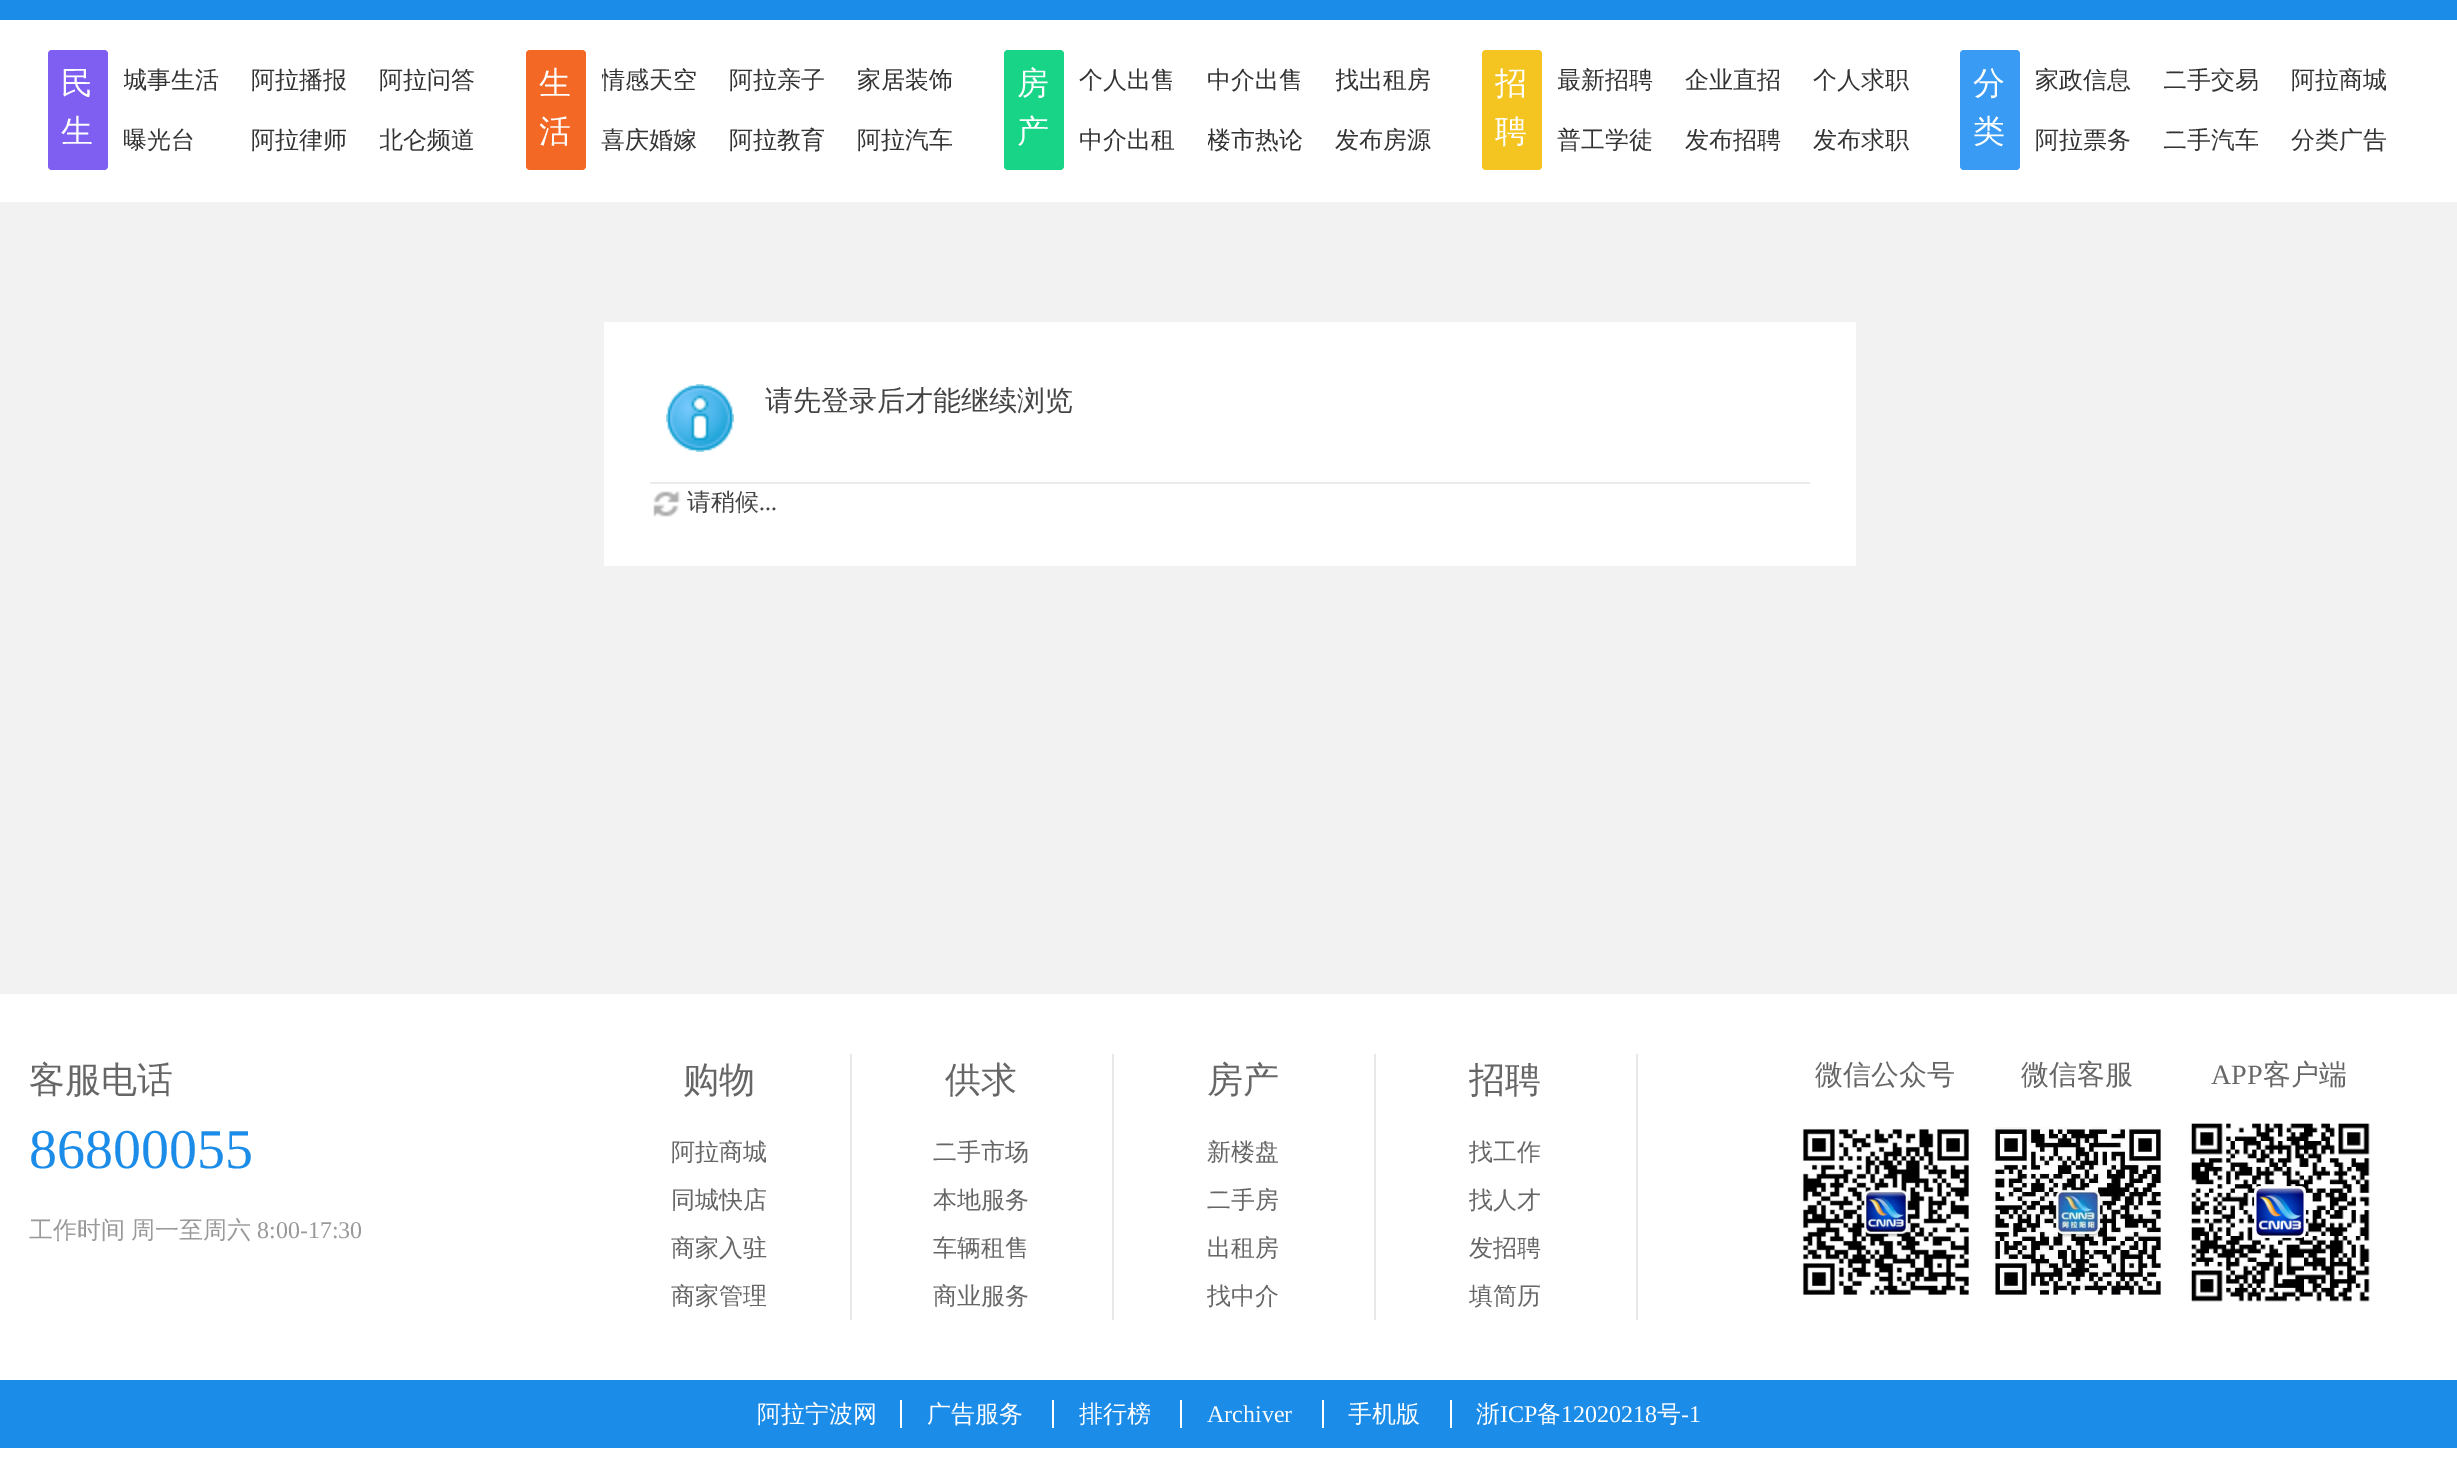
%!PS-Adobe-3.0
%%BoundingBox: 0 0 2457 1484
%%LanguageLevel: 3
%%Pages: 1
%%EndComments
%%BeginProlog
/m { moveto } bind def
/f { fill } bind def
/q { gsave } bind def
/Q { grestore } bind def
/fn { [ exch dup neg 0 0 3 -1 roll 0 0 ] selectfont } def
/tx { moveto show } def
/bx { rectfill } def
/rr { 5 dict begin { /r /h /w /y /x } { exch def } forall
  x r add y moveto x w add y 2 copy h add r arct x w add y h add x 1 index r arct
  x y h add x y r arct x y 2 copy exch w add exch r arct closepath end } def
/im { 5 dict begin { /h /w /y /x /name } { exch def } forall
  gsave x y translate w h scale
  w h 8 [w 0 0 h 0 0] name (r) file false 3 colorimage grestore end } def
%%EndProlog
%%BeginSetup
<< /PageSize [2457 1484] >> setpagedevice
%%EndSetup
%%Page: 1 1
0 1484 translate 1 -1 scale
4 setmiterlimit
0.949 setgray
0 0 2457 1484 bx
0.11 0.549 0.914 setrgbcolor
0 0 2457 20 bx
1 setgray
0 20 2457 182 bx
0.494 0.373 0.949 setrgbcolor
48 50 60 120 4 rr f
/WenQuanYiZenHei-Medium 32 fn
1 setgray
(民) 61 94 tx
(生) 61 142 tx
q
124 50 108 60 rectclip
/WenQuanYiZenHei-Medium 24 fn
0.2 setgray
(城事生活) 123 88 tx
Q
/WenQuanYiZenHei-Medium 24 fn
0.2 setgray
(阿拉播报) 251 88 tx
(阿拉问答) 379 88 tx
(曝光台) 123 148 tx
(阿拉律师) 251 148 tx
q
380 110 108 60 rectclip
(北仑频道) 379 148 tx
Q
0.953 0.408 0.145 setrgbcolor
526 50 60 120 4 rr f
/WenQuanYiZenHei-Medium 32 fn
1 setgray
(生) 539 94 tx
(活) 539 142 tx
q
602 50 108 60 rectclip
/WenQuanYiZenHei-Medium 24 fn
0.2 setgray
(情感天空) 601 88 tx
Q
/WenQuanYiZenHei-Medium 24 fn
0.2 setgray
(阿拉亲子) 729 88 tx
(家居装饰) 857 88 tx
(喜庆婚嫁) 601 148 tx
(阿拉教育) 729 148 tx
(阿拉汽车) 857 148 tx
0.094 0.831 0.529 setrgbcolor
1004 50 60 120 4 rr f
/WenQuanYiZenHei-Medium 32 fn
1 setgray
(房) 1017 94 tx
(产) 1017 142 tx
/WenQuanYiZenHei-Medium 24 fn
0.2 setgray
(个人出售) 1079 88 tx
(中介出售) 1207 88 tx
q
1336 50 108 60 rectclip
(找出租房) 1335 88 tx
Q
(中介出租) 1079 148 tx
q
1208 110 108 60 rectclip
(楼市热论) 1207 148 tx
Q
(发布房源) 1335 148 tx
0.957 0.773 0.125 setrgbcolor
1482 50 60 120 4 rr f
/WenQuanYiZenHei-Medium 32 fn
1 setgray
(招) 1495 94 tx
(聘) 1495 142 tx
q
1558 50 108 60 rectclip
/WenQuanYiZenHei-Medium 24 fn
0.2 setgray
(最新招聘) 1557 88 tx
Q
/WenQuanYiZenHei-Medium 24 fn
0.2 setgray
(企业直招) 1685 88 tx
(个人求职) 1813 88 tx
(普工学徒) 1557 148 tx
(发布招聘) 1685 148 tx
(发布求职) 1813 148 tx
0.224 0.608 0.953 setrgbcolor
1960 50 60 120 4 rr f
/WenQuanYiZenHei-Medium 32 fn
1 setgray
(分) 1973 94 tx
(类) 1973 142 tx
/WenQuanYiZenHei-Medium 24 fn
0.2 setgray
(家政信息) 2035 88 tx
q
2164 50 108 60 rectclip
(二手交易) 2163 88 tx
Q
(阿拉商城) 2291 88 tx
(阿拉票务) 2035 148 tx
q
2164 110 108 60 rectclip
(二手汽车) 2163 148 tx
Q
(分类广告) 2291 148 tx
1 setgray
604 322 1252 244 bx
(image0.raw) 666 384 68 68 im
/WenQuanYiZenHei-Medium 28 fn
0.267 setgray
(请先登录后才能继续浏览) 765 410 tx
0.922 0.922 0.929 setrgbcolor
650 482 1160 2 bx
(image1.raw) 653 491 28 26 im
/WenQuanYiZenHei-Medium 24 fn
0.267 setgray
(请稍候) 687 510 tx
/LiberationSerif-Regular 24 fn
(...) 759 510 tx
1 setgray
0 994 2457 386 bx
/WenQuanYiZenHei-Medium 36 fn
0.4 setgray
(客服电话) 29 1092 tx
/LiberationSerif-Regular 56 fn
0.11 0.549 0.914 setrgbcolor
(86800055) 29 1168 tx
/WenQuanYiZenHei-Medium 24 fn
0.6 setgray
29 1238 m -1 0 32 (工作时间 周一至周六) widthshow
/LiberationSerif-Regular 24 fn
(8:00-17:30) 257 1238 tx
0.91 setgray
850 1054 2 266 bx
/WenQuanYiZenHei-Medium 36 fn
0.4 setgray
(购物) 683 1092 tx
/WenQuanYiZenHei-Medium 24 fn
(阿拉商城) 671 1160 tx
(同城快店) 671 1208 tx
(商家入驻) 671 1256 tx
(商家管理) 671 1304 tx
0.91 setgray
1112 1054 2 266 bx
/WenQuanYiZenHei-Medium 36 fn
0.4 setgray
(供求) 945 1092 tx
/WenQuanYiZenHei-Medium 24 fn
(二手市场) 933 1160 tx
(本地服务) 933 1208 tx
(车辆租售) 933 1256 tx
(商业服务) 933 1304 tx
0.91 setgray
1374 1054 2 266 bx
/WenQuanYiZenHei-Medium 36 fn
0.4 setgray
(房产) 1207 1092 tx
/WenQuanYiZenHei-Medium 24 fn
(新楼盘) 1207 1160 tx
(二手房) 1207 1208 tx
(出租房) 1207 1256 tx
(找中介) 1207 1304 tx
0.91 setgray
1636 1054 2 266 bx
/WenQuanYiZenHei-Medium 36 fn
0.4 setgray
(招聘) 1469 1092 tx
/WenQuanYiZenHei-Medium 24 fn
(找工作) 1469 1160 tx
(找人才) 1469 1208 tx
(发招聘) 1469 1256 tx
(填简历) 1469 1304 tx
/WenQuanYiZenHei-Medium 28 fn
(微信公众号) 1815 1084 tx
(image2.raw) 1801 1127 168 168 im
(微信客服) 2021 1084 tx
(image3.raw) 1993 1127 168 168 im
/LiberationSerif-Regular 28 fn
(APP) 2211 1084 tx
/WenQuanYiZenHei-Medium 28 fn
(客户端) 2263 1084 tx
(image4.raw) 2191 1123 179 179 im
0.11 0.549 0.914 setrgbcolor
0 1380 2457 68 bx
/WenQuanYiZenHei-Medium 24 fn
1 setgray
(阿拉宁波网) 757 1422 tx
900 1400 2 28 bx
(广告服务) 927 1422 tx
1052 1400 2 28 bx
(排行榜) 1079 1422 tx
1180 1400 2 28 bx
/LiberationSerif-Regular 24 fn
(Archiver) 1207 1422 tx
1322 1400 2 28 bx
/WenQuanYiZenHei-Medium 24 fn
(手机版) 1348 1422 tx
1450 1400 2 28 bx
(浙) 1476 1422 tx
/LiberationSerif-Regular 24 fn
(ICP) 1500 1422 tx
/WenQuanYiZenHei-Medium 24 fn
(备) 1537 1422 tx
/LiberationSerif-Regular 24 fn
(12020218) 1561 1422 tx
/WenQuanYiZenHei-Medium 24 fn
(号) 1657 1422 tx
/LiberationSerif-Regular 24 fn
(-1) 1681 1422 tx
0 1448 2457 36 bx
showpage
%%EOF
